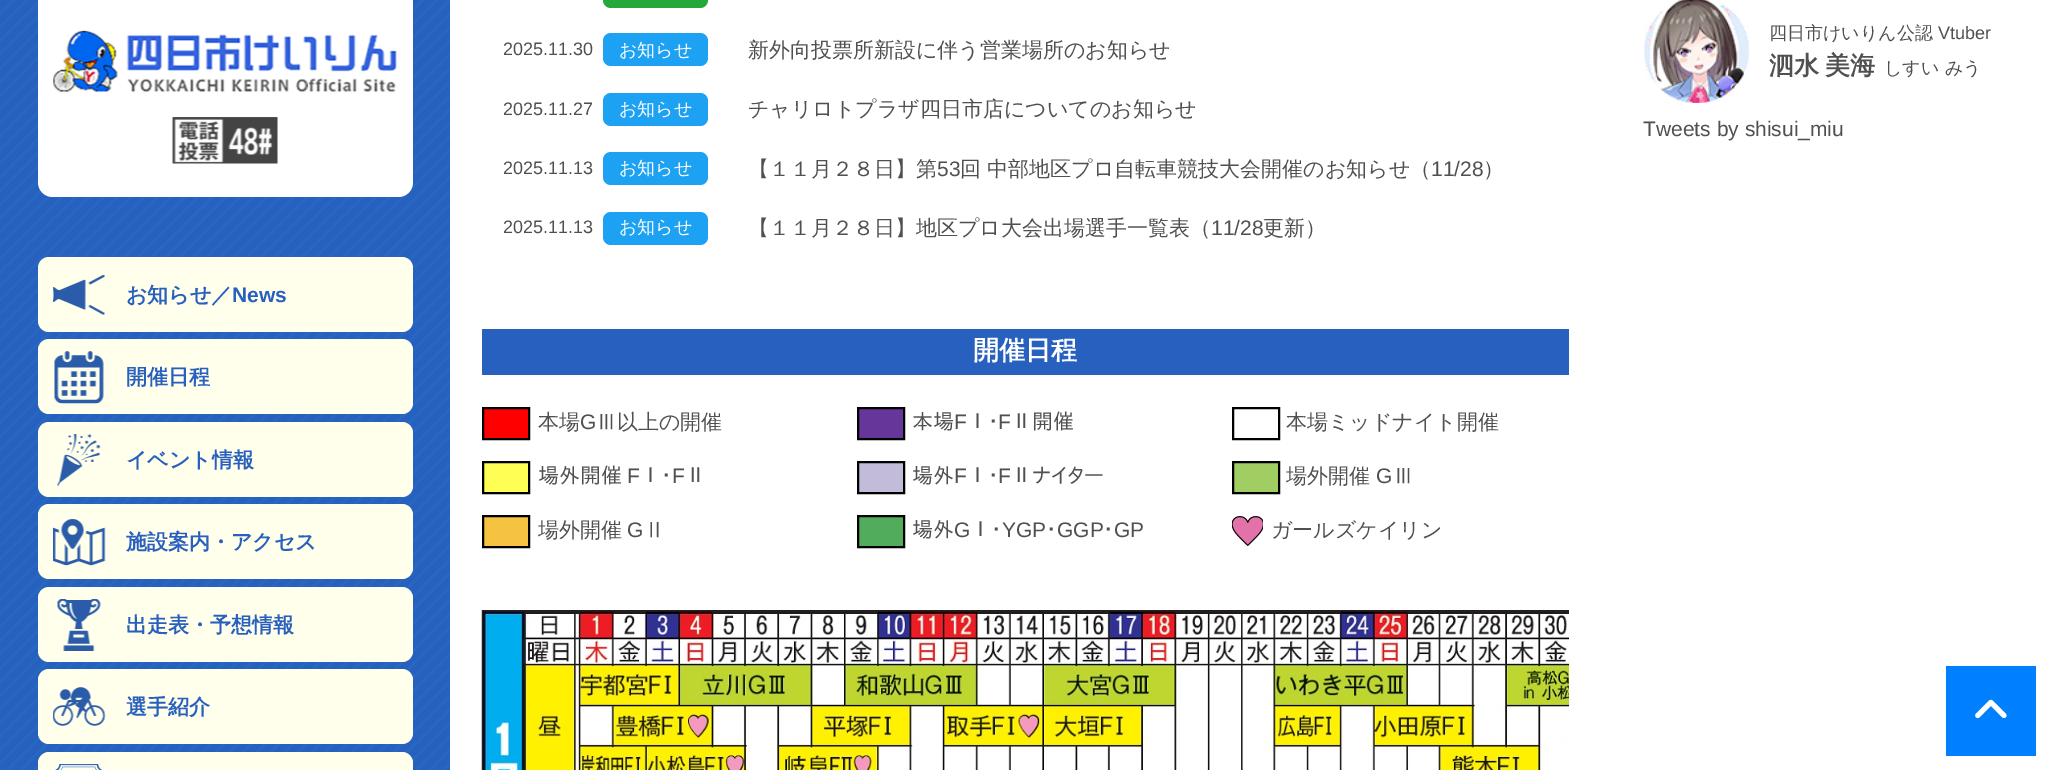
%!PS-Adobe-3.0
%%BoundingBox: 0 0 2050 770
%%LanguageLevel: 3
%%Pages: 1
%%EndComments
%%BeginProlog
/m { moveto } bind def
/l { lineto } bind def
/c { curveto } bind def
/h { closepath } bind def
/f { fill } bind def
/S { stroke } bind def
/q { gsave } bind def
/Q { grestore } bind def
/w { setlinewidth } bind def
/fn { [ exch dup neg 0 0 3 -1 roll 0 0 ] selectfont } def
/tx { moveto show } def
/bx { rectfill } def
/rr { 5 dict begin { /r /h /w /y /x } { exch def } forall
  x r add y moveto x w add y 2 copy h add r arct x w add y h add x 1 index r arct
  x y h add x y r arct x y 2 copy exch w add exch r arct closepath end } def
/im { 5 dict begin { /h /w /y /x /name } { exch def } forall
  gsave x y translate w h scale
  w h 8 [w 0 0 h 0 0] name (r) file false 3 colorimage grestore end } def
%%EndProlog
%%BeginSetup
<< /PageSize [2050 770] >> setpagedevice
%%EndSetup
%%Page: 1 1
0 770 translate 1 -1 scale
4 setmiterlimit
1 setgray
0 0 2050 770 bx
(image0.raw) 0 0 450 770 im
38 0 m 413 0 l 413 182 l 413 190.5 406.5 197 398 197 c 53 197 l 44.5 197 38 190.5 38 182 c h f
(image1.raw) 53 30 344 63 im
(image2.raw) 172 117 106 47 im
1 1 0.922 setrgbcolor
38 257 375 75 11 rr f
(image3.raw) 53 275 53 40 im
/WenQuanYiZenHei-Bold 21 fn
0.153 0.376 0.745 setrgbcolor
(お知らせ／) 126 302 tx
/LiberationSans-Bold 21 fn
(News) 232 302 tx
1 1 0.922 setrgbcolor
38 339 375 75 11 rr f
(image4.raw) 54 351 50 53 im
/WenQuanYiZenHei-Bold 21 fn
0.153 0.376 0.745 setrgbcolor
(開催日程) 126 384 tx
1 1 0.922 setrgbcolor
38 422 375 75 11 rr f
(image5.raw) 57 434 44 52 im
0.153 0.376 0.745 setrgbcolor
(イベント情報) 126 467 tx
1 1 0.922 setrgbcolor
38 504 375 75 11 rr f
(image6.raw) 53 519 53 47 im
0.153 0.376 0.745 setrgbcolor
(施設案内・アクセス) 126 549 tx
1 1 0.922 setrgbcolor
38 587 375 75 11 rr f
(image7.raw) 57 599 44 52 im
0.153 0.376 0.745 setrgbcolor
(出走表・予想情報) 126 632 tx
1 1 0.922 setrgbcolor
38 669 375 75 11 rr f
(image8.raw) 53 687 53 39 im
0.153 0.376 0.745 setrgbcolor
(選手紹介) 126 714 tx
1 1 0.922 setrgbcolor
49 752 m 402 752 l 408 752 413 757 413 763 c 413 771 l 38 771 l 38 763 l 38 757 43 752 49 752 c h f
(image9.raw) 55 764 48 6 im
0.141 0.659 0.227 setrgbcolor
603 -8 105 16 8 rr f
/LiberationSans-Regular 18 fn
0.314 setgray
(2025.11.30) 503 55 tx
0.114 0.631 0.949 setrgbcolor
603 33 105 33 8 rr f
/WenQuanYiZenHei-Medium 18 fn
1 setgray
(お知らせ) 619 56 tx
/WenQuanYiZenHei-Medium 21 fn
0.314 setgray
(新外向投票所新設に伴う営業場所のお知らせ) 748 57 tx
/LiberationSans-Regular 18 fn
(2025.11.27) 503 115 tx
0.114 0.631 0.949 setrgbcolor
603 93 105 33 8 rr f
/WenQuanYiZenHei-Medium 18 fn
1 setgray
(お知らせ) 619 115 tx
/WenQuanYiZenHei-Medium 21 fn
0.314 setgray
(チャリロトプラザ四日市店についてのお知らせ) 748 116 tx
/LiberationSans-Regular 18 fn
(2025.11.13) 503 174 tx
0.114 0.631 0.949 setrgbcolor
603 152 105 33 8 rr f
/WenQuanYiZenHei-Medium 18 fn
1 setgray
(お知らせ) 619 174 tx
/WenQuanYiZenHei-Medium 21 fn
0.314 setgray
(【１１月２８日】第) 748 176 tx
/LiberationSans-Regular 21 fn
(53) 937 176 tx
/WenQuanYiZenHei-Medium 21 fn
(回 中部地区プロ自転車競技大会開催のお知らせ（) 960 176 tx
/LiberationSans-Regular 21 fn
(11/28) 1431 176 tx
/WenQuanYiZenHei-Medium 21 fn
(）) 1483 176 tx
/LiberationSans-Regular 18 fn
(2025.11.13) 503 233 tx
0.114 0.631 0.949 setrgbcolor
603 212 105 33 8 rr f
/WenQuanYiZenHei-Medium 18 fn
1 setgray
(お知らせ) 619 233 tx
/WenQuanYiZenHei-Medium 21 fn
0.314 setgray
(【１１月２８日】地区プロ大会出場選手一覧表（) 748 235 tx
/LiberationSans-Regular 21 fn
(11/28) 1211 235 tx
/WenQuanYiZenHei-Medium 21 fn
(更新）) 1263 235 tx
0.153 0.376 0.745 setrgbcolor
482 329 1087 46 bx
/WenQuanYiZenHei-Bold 26 fn
1 setgray
(開催日程) 973 359 tx
1 0 0 setrgbcolor
483 408 m 529 408 l 529 439 l 483 439 l h q f Q
0 setgray
2 w
S
/WenQuanYiZenHei-Medium 21 fn
0.314 setgray
(本場) 538 429 tx
/LiberationSans-Regular 21 fn
(G) 580 429 tx
/WenQuanYiZenHei-Medium 21 fn
(Ⅲ以上の開催) 596 429 tx
0.404 0.212 0.608 setrgbcolor
858 408 m 904 408 l 904 439 l 858 439 l h q f Q
0 setgray
S
/IPAPGothic-Regular 21 fn
0.314 setgray
(本場) 912 429 tx
/LiberationSans-Regular 21 fn
(F) 954 429 tx
/IPAPGothic-Regular 21 fn
(Ⅰ･) 967 429 tx
/LiberationSans-Regular 21 fn
(F) 998 429 tx
/IPAPGothic-Regular 21 fn
(Ⅱ開催) 1011 429 tx
0 setgray
1233 408 46 31 rectstroke
/WenQuanYiZenHei-Medium 21 fn
0.314 setgray
(本場ミッドナイト開催) 1286 429 tx
1 0.996 0.329 setrgbcolor
483 462 m 529 462 l 529 493 l 483 493 l h q f Q
0 setgray
S
/IPAPGothic-Regular 21 fn
0.314 setgray
(場外開催) 538 483 tx
/LiberationSans-Regular 21 fn
(F) 627 483 tx
/IPAPGothic-Regular 21 fn
(Ⅰ･) 640 483 tx
/LiberationSans-Regular 21 fn
(F) 672 483 tx
/IPAPGothic-Regular 21 fn
(Ⅱ) 685 483 tx
0.761 0.733 0.851 setrgbcolor
858 462 m 904 462 l 904 493 l 858 493 l h q f Q
0 setgray
S
0.314 setgray
(場外) 912 483 tx
/LiberationSans-Regular 21 fn
(F) 954 483 tx
/IPAPGothic-Regular 21 fn
(Ⅰ･) 967 483 tx
/LiberationSans-Regular 21 fn
(F) 998 483 tx
/IPAPGothic-Regular 21 fn
(Ⅱナイター) 1011 483 tx
0.627 0.808 0.384 setrgbcolor
1233 462 m 1279 462 l 1279 493 l 1233 493 l h q f Q
0 setgray
S
/WenQuanYiZenHei-Medium 21 fn
0.314 setgray
(場外開催) 1286 483 tx
/LiberationSans-Regular 21 fn
(G) 1376 483 tx
/WenQuanYiZenHei-Medium 21 fn
(Ⅲ) 1393 483 tx
0.961 0.761 0.259 setrgbcolor
483 516 m 529 516 l 529 547 l 483 547 l h q f Q
0 setgray
S
0.314 setgray
(場外開催) 538 537 tx
/LiberationSans-Regular 21 fn
(G) 627 537 tx
/WenQuanYiZenHei-Medium 21 fn
(Ⅱ) 644 537 tx
0.318 0.678 0.357 setrgbcolor
858 516 m 904 516 l 904 547 l 858 547 l h q f Q
0 setgray
S
/IPAPGothic-Regular 21 fn
0.314 setgray
(場外) 912 537 tx
/LiberationSans-Regular 21 fn
(G) 954 537 tx
/IPAPGothic-Regular 21 fn
(Ⅰ･) 970 537 tx
/LiberationSans-Regular 21 fn
(YGP) 1002 537 tx
/IPAPGothic-Regular 21 fn
(･) 1046 537 tx
/LiberationSans-Regular 21 fn
(GGP) 1057 537 tx
/IPAPGothic-Regular 21 fn
(･) 1103 537 tx
/LiberationSans-Regular 21 fn
(GP) 1114 537 tx
(image10.raw) 1232 516 31 30 im
/WenQuanYiZenHei-Medium 21 fn
(ガールズケイリン) 1271 537 tx
(image11.raw) 481 610 1088 160 im
(image12.raw) 1644 0 105 103 im
/WenQuanYiZenHei-Medium 18 fn
(四日市けいりん公認) 1769 39 tx
/LiberationSans-Regular 18 fn
(Vtuber) 1938 39 tx
/WenQuanYiZenHei-Bold 25 fn
1769 74 m -1 0 32 (泗水 美海) widthshow
/WenQuanYiZenHei-Medium 18 fn
(しすい みう) 1884 74 tx
/LiberationSans-Regular 21 fn
(Tweets by shisui_miu) 1643 136 tx
0 0.502 1 setrgbcolor
1946 666 90 90 bx
(image13.raw) 1975 699 32 20 im
showpage
%%EOF
